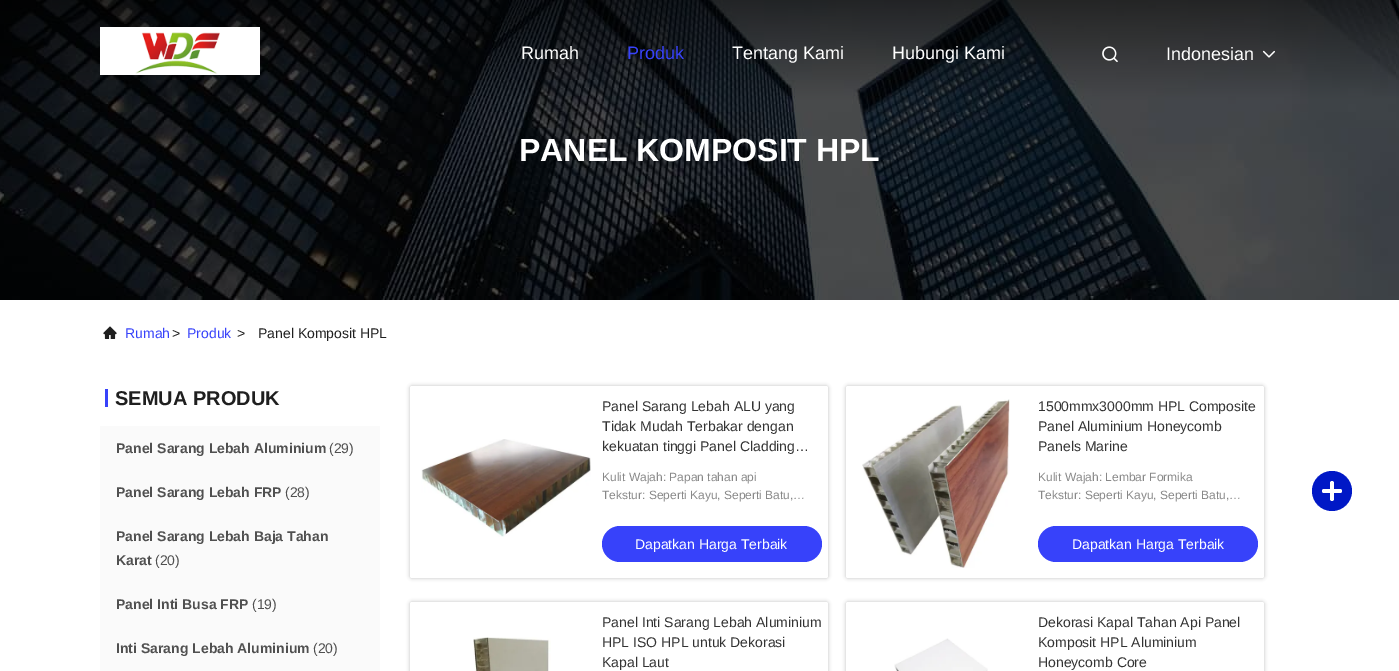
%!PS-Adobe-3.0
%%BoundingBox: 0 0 1399 671
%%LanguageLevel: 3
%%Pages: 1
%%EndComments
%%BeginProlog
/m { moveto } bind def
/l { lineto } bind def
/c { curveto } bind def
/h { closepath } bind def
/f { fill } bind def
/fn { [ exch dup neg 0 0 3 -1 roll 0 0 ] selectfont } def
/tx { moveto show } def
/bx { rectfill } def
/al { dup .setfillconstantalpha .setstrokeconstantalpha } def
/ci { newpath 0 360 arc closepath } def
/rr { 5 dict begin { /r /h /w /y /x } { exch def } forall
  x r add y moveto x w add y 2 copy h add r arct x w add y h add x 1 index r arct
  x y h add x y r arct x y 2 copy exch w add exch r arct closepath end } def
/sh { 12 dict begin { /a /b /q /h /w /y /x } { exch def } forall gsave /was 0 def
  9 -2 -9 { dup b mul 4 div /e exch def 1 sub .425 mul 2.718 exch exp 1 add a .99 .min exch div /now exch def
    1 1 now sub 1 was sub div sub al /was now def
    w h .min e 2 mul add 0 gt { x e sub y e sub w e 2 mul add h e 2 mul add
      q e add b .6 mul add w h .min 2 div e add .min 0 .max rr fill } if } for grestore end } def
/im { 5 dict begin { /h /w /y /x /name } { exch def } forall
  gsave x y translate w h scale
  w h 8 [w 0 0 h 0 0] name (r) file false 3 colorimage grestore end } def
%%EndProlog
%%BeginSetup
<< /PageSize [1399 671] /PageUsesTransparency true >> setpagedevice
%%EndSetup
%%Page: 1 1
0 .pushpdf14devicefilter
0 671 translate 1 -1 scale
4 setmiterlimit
1 setgray
0 0 1399 671 bx
(image3.raw) 0 0 1399 300 im
(image0.raw) 100 27 160 48 im
/LiberationSans-Regular 18 fn
(Rumah) 521 59 tx
0.216 0.259 0.98 setrgbcolor
(Produk) 627 59 tx
1 setgray
(Tentang Kami) 732 59 tx
(Hubungi Kami) 892 59 tx
(image1.raw) 1102 46 16 17 im
(Indonesian) 1166 60 tx
(image2.raw) 1262 50 13 8 im
/LiberationSans-Bold 32 fn
(PANEL KOMPOSIT HPL) 519 161 tx
(image4.raw) 103 326 14 13 im
/LiberationSans-Regular 14 fn
0.216 0.259 0.98 setrgbcolor
(Rumah) 125 338 tx
0.122 setgray
(>) 172 338 tx
0.216 0.259 0.98 setrgbcolor
(Produk) 187 338 tx
0.122 setgray
(>) 237 338 tx
(Panel Komposit HPL) 258 338 tx
0.216 0.259 0.98 setrgbcolor
105 389 3 18 bx
/LiberationSans-Bold 20 fn
0.122 setgray
(SEMUA PRODUK) 115 405 tx
0.98 setgray
100 426 280 245 bx
/LiberationSans-Bold 14 fn
0.314 setgray
(Panel Sarang Lebah Aluminium) 116 453 tx
/LiberationSans-Regular 14 fn
(\(29\)) 329 453 tx
/LiberationSans-Bold 14 fn
(Panel Sarang Lebah FRP) 116 497 tx
/LiberationSans-Regular 14 fn
(\(28\)) 285 497 tx
/LiberationSans-Bold 14 fn
(Panel Sarang Lebah Baja Tahan) 116 541 tx
(Karat) 116 565 tx
/LiberationSans-Regular 14 fn
(\(20\)) 155 565 tx
/LiberationSans-Bold 14 fn
(Panel Inti Busa FRP) 116 609 tx
/LiberationSans-Regular 14 fn
(\(19\)) 252 609 tx
/LiberationSans-Bold 14 fn
(Inti Sarang Lebah Aluminium) 116 653 tx
/LiberationSans-Regular 14 fn
(\(20\)) 313 653 tx
0 setgray
410 386 418 192 2 2 0.25 sh
1 setgray
410 386 418 192 2 rr f
(image5.raw) 421 439 170 98 im
0.2 setgray
(Panel Sarang Lebah ALU yang) 602 411 tx
(Tidak Mudah Terbakar dengan) 602 431 tx
(kekuatan tinggi Panel Cladding…) 602 451 tx
/LiberationSans-Regular 12 fn
0.533 setgray
(Kulit Wajah: Papan tahan api) 602 481 tx
(Tekstur: Seperti Kayu, Seperti Batu,…) 602 499 tx
0.216 0.259 0.98 setrgbcolor
602 526 220 36 18 rr f
/LiberationSans-Regular 14 fn
1 setgray
(Dapatkan Harga Terbaik) 635 549 tx
0 setgray
846 386 418 192 2 2 0.25 sh
1 setgray
846 386 418 192 2 rr f
(image6.raw) 862 399 148 169 im
0.2 setgray
(1500mmx3000mm HPL Composite) 1038 411 tx
(Panel Aluminium Honeycomb) 1038 431 tx
(Panels Marine) 1038 451 tx
/LiberationSans-Regular 12 fn
0.533 setgray
(Kulit Wajah: Lembar Formika) 1038 481 tx
(Tekstur: Seperti Kayu, Seperti Batu,…) 1038 499 tx
0.216 0.259 0.98 setrgbcolor
1038 526 220 36 18 rr f
/LiberationSans-Regular 14 fn
1 setgray
(Dapatkan Harga Terbaik) 1072 549 tx
0 setgray
410 602 418 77 2 2 0.25 sh
1 setgray
410 602 418 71 2 rr f
(image7.raw) 473 637 78 34 im
0.2 setgray
(Panel Inti Sarang Lebah Aluminium) 602 627 tx
(HPL ISO HPL untuk Dekorasi) 602 647 tx
(Kapal Laut) 602 667 tx
0 setgray
846 602 418 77 2 2 0.25 sh
1 setgray
846 602 418 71 2 rr f
(image8.raw) 894 638 94 33 im
0.2 setgray
(Dekorasi Kapal Tahan Api Panel) 1038 627 tx
(Komposit HPL Aluminium) 1038 647 tx
(Honeycomb Core) 1038 667 tx
0 0.094 0.776 setrgbcolor
1332 491 20 ci f
1 setgray
1322 489 20 4 2 rr f
1334 483 m 1334 499 l 1334 500 1333 501 1332 501 c 1331 501 1330 500 1330 499 c 1330 483 l 1330 482 1331 481 1332 481 c 1333 481 1334 482 1334 483 c h f
.poppdf14devicefilter showpage
%%EOF
